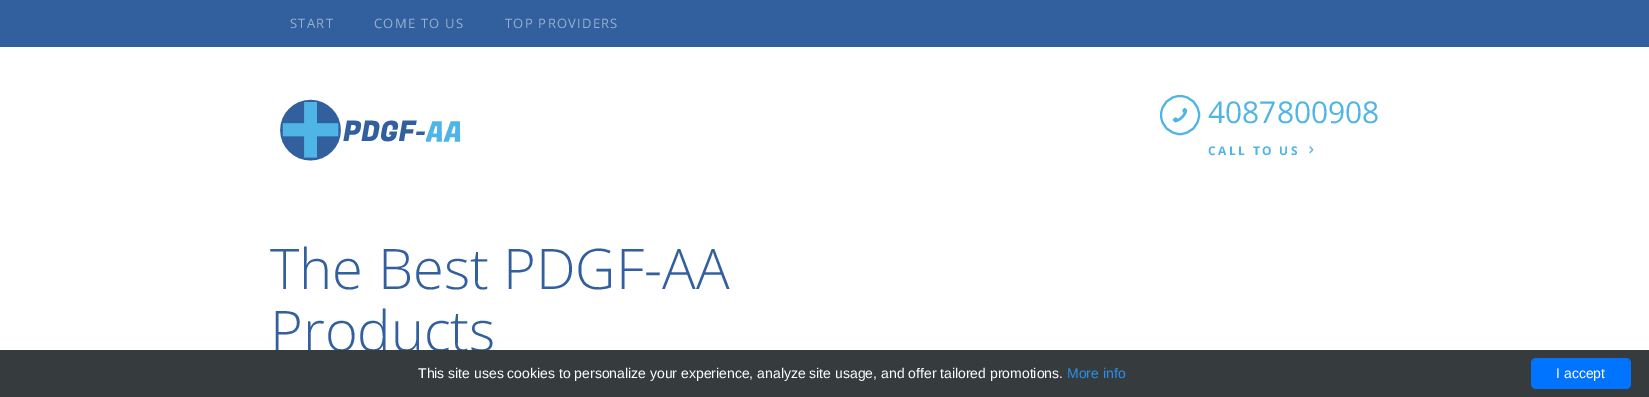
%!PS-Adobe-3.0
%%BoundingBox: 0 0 1649 397
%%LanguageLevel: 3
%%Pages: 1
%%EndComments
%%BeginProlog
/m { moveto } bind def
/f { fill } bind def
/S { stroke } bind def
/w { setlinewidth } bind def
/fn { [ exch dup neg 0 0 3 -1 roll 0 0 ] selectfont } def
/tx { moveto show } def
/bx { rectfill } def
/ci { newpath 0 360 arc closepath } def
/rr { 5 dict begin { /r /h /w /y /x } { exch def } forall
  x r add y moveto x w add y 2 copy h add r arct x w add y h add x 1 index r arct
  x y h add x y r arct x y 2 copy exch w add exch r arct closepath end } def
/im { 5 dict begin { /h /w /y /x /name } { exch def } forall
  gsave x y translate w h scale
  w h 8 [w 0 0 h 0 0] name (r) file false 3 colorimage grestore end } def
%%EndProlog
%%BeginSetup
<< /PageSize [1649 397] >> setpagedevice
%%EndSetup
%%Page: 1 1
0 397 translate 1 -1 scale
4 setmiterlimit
1 setgray
0 0 1649 397 bx
0.196 0.376 0.62 setrgbcolor
0 0 1649 47 bx
/OpenSans-Regular 13 fn
0.6 0.69 0.812 setrgbcolor
290 28 m 1.25 0 (START) ashow
374 28 m 1.25 0 (COME TO US) ashow
505 28 m 1.25 0 (TOP PROVIDERS) ashow
(image0.raw) 280 99 181 62 im
0.31 0.71 0.902 setrgbcolor
2 w
1180 115 19 ci S
(image1.raw) 1172 107 16 16 im
/OpenSans-Regular 30 fn
(4087800908) 1208 123 tx
/OpenSans-Bold 12 fn
1208 155 m 2.4 0 (CALL TO US) ashow
(image2.raw) 1309 146 5 8 im
/OpenSans-Light 56 fn
0.196 0.376 0.62 setrgbcolor
(The Best PDGF-AA) 270 289 tx
(Products) 270 351 tx
0.212 0.231 0.243 setrgbcolor
0 350 1649 47 bx
/LiberationSans-Regular 14 fn
1 setgray
(This site uses cookies to personalize your experience, analyze site usage, and offer tailored promotions.) 418 378 tx
0.161 0.565 0.918 setrgbcolor
(More info) 1067 378 tx
0 0.451 1 setrgbcolor
1531 358 100 31 5 rr f
1 setgray
(I accept) 1556 378 tx
showpage
%%EOF
